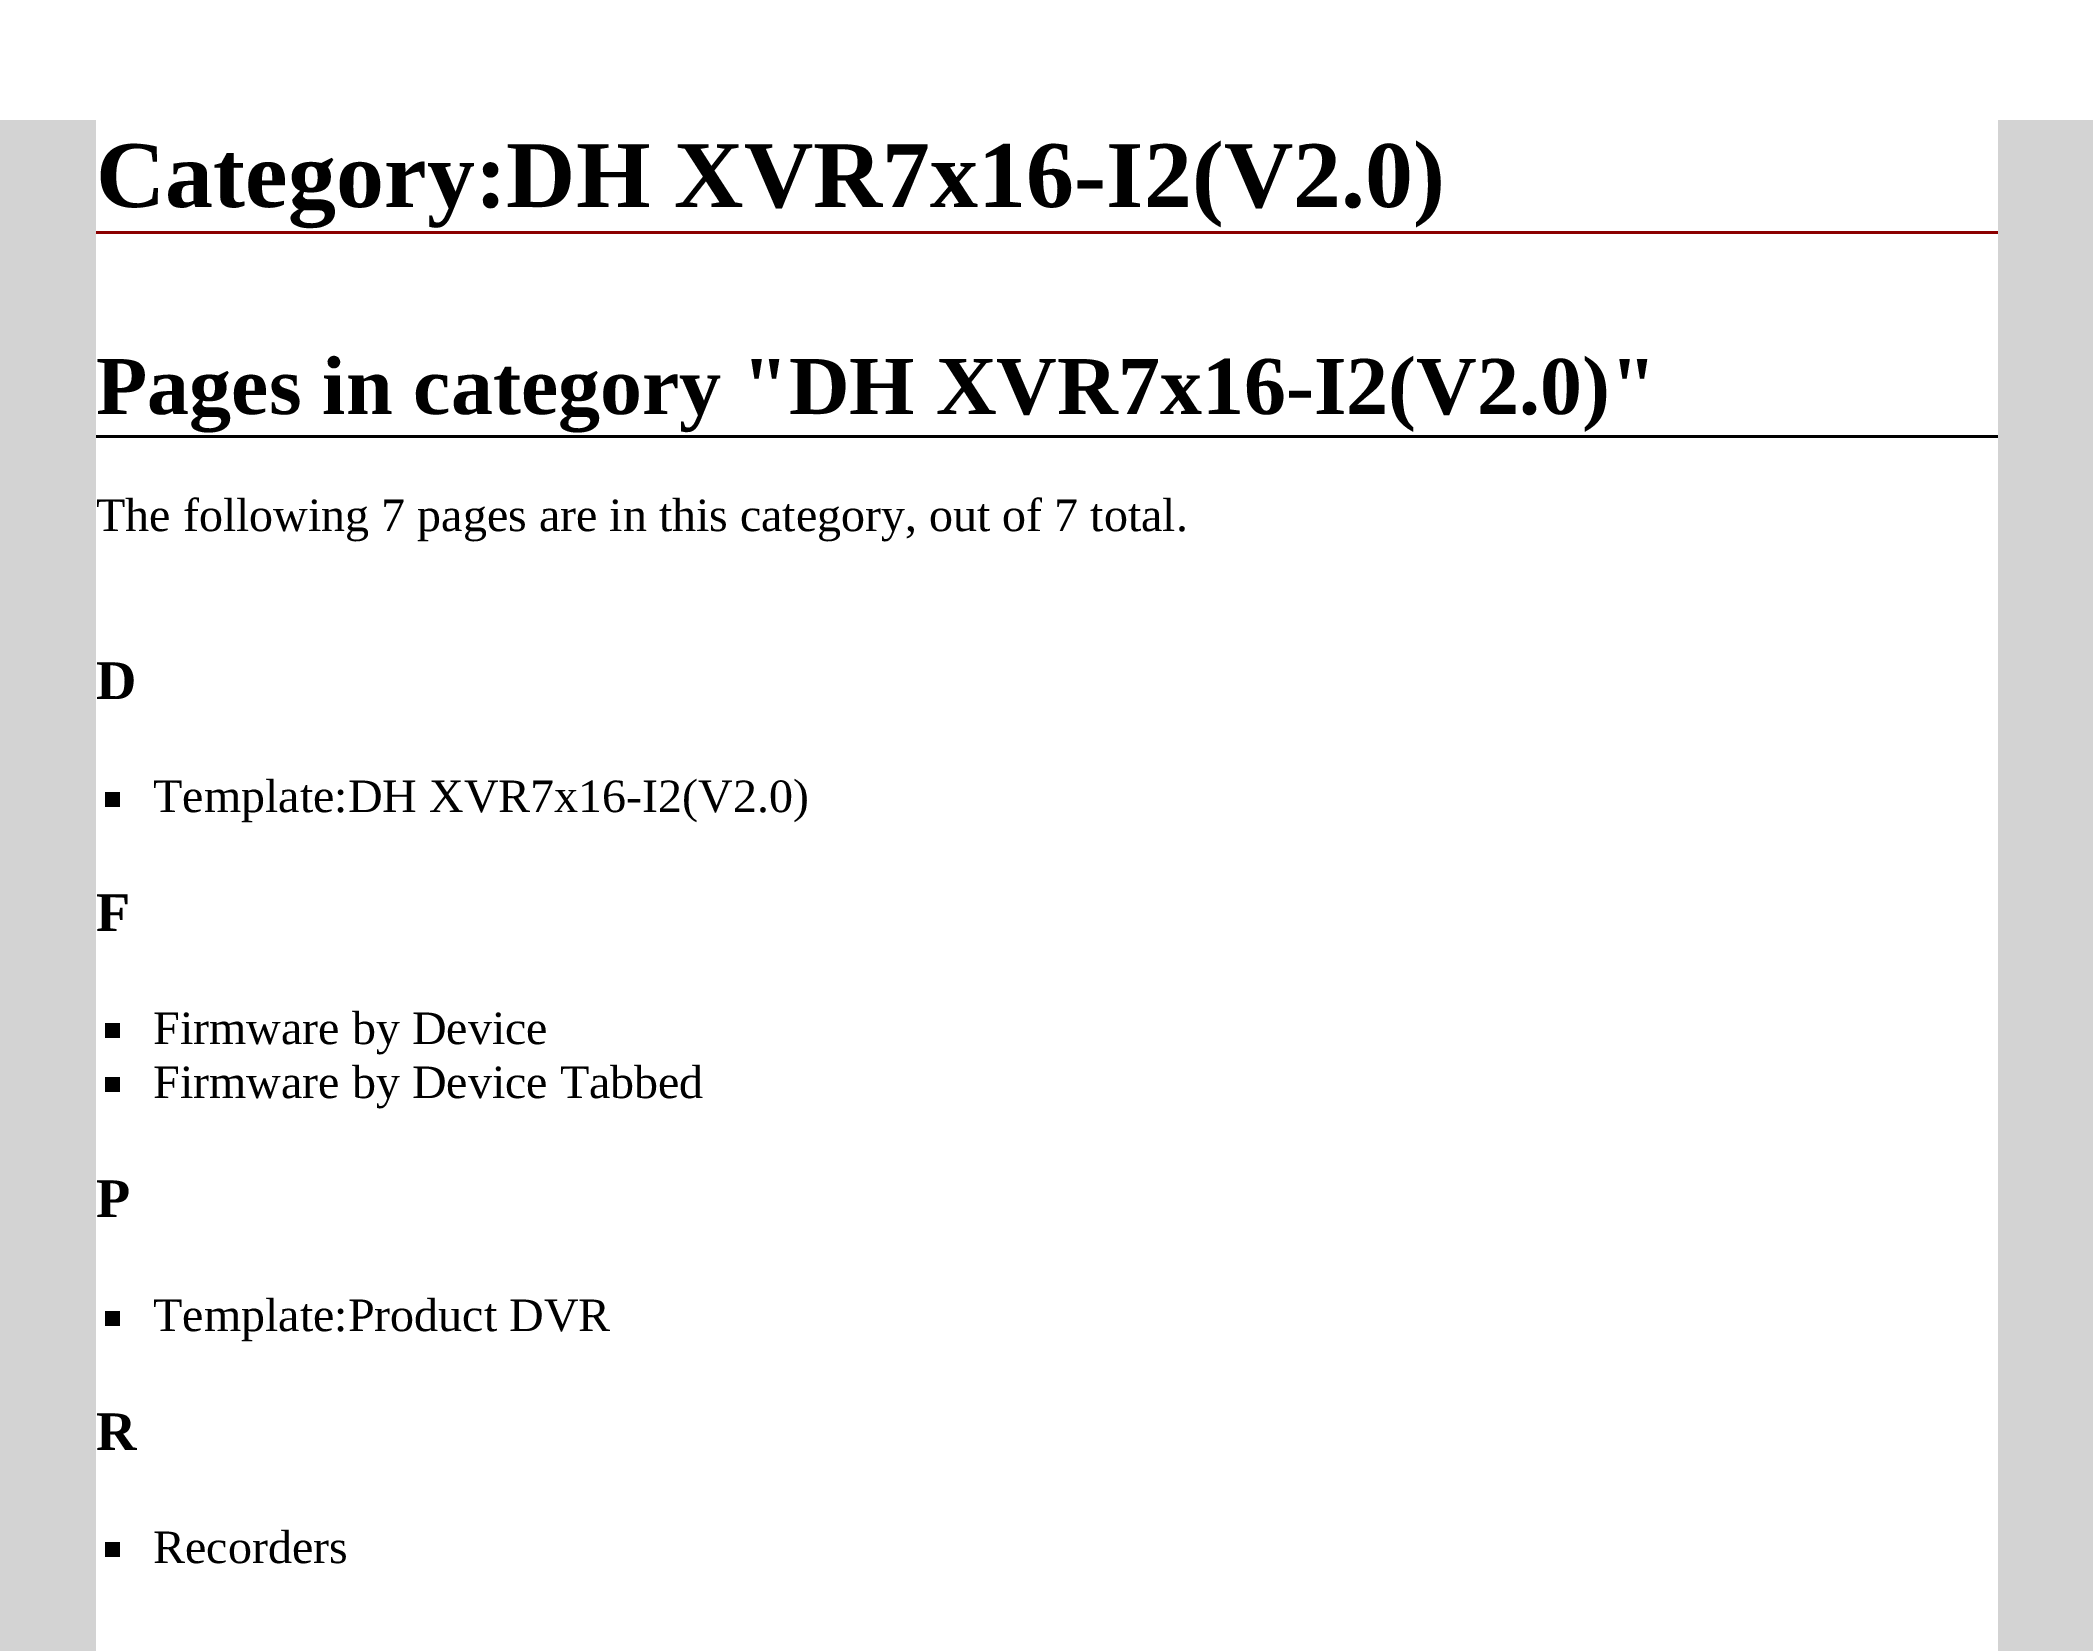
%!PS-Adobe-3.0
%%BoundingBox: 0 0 2093 1651
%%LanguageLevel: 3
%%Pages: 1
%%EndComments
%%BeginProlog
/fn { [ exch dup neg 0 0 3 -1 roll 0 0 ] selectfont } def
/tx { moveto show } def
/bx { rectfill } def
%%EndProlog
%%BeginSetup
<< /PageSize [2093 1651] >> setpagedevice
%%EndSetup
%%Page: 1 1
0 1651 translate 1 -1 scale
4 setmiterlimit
1 setgray
0 0 2093 1651 bx
0.827 setgray
0 120 2093 1531 bx
1 setgray
96 120 1902 1531 bx
0.545 0 0 setrgbcolor
96 231 1902 3 bx
/LiberationSerif-Bold 96 fn
0 setgray
(Category:DH XVR7x16-I2\(V2.0\)) 96 207 tx
96 435 1902 3 bx
/LiberationSerif-Bold 84 fn
(Pages in category "DH XVR7x16-I2\(V2.0\)") 96 414 tx
/LiberationSerif-Regular 48 fn
(The following 7 pages are in this category, out of 7 total.) 96 531 tx
/LiberationSerif-Bold 56 fn
(D) 96 699 tx
105 792 15 15 bx
/LiberationSerif-Regular 48 fn
(Template:DH XVR7x16-I2\(V2.0\)) 153 812 tx
/LiberationSerif-Bold 56 fn
(F) 96 931 tx
105 1023 15 15 bx
/LiberationSerif-Regular 48 fn
(Firmware by Device) 153 1044 tx
105 1077 15 15 bx
(Firmware by Device Tabbed) 153 1098 tx
/LiberationSerif-Bold 56 fn
(P) 96 1217 tx
105 1311 15 15 bx
/LiberationSerif-Regular 48 fn
(Template:Product DVR) 153 1331 tx
/LiberationSerif-Bold 56 fn
(R) 96 1450 tx
105 1542 15 15 bx
/LiberationSerif-Regular 48 fn
(Recorders) 153 1563 tx
showpage
%%EOF
